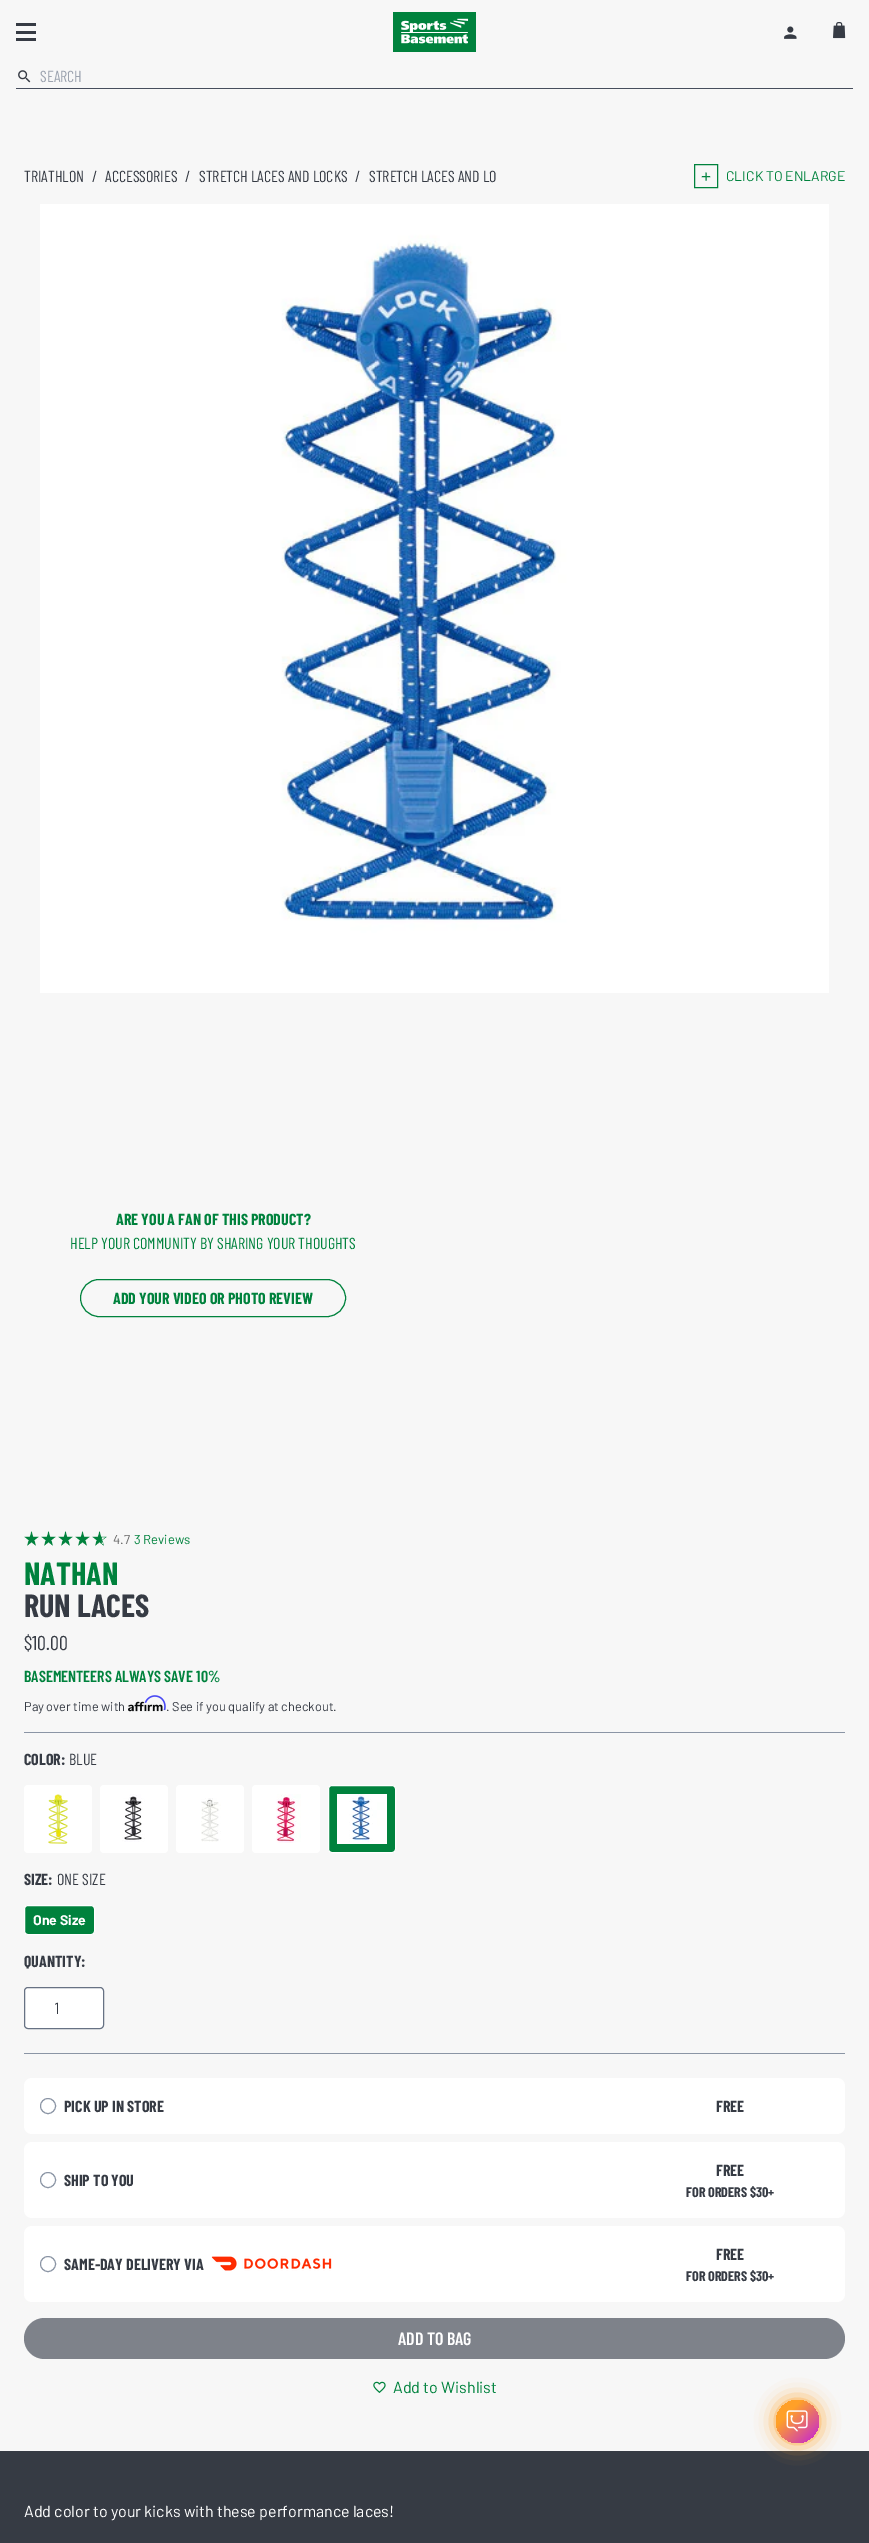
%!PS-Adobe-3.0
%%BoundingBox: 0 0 869 2543
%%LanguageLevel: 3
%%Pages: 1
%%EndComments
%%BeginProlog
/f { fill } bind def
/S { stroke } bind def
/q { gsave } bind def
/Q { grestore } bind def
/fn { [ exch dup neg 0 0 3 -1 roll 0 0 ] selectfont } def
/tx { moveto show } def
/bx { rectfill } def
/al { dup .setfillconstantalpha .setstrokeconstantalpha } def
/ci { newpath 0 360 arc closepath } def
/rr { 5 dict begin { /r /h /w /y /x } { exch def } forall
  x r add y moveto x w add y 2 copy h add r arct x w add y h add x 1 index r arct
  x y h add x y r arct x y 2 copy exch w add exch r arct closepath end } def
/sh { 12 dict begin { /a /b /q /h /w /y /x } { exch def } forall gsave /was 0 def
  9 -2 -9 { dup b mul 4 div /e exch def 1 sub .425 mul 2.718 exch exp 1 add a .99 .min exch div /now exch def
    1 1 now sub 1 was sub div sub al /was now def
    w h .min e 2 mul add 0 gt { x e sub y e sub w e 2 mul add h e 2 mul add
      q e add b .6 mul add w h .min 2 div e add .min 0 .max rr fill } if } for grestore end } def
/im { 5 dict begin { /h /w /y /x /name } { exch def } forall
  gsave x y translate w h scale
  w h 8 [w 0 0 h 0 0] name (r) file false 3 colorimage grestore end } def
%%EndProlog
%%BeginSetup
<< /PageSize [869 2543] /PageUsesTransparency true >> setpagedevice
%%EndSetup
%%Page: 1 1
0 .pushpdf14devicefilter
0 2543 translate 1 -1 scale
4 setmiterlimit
0.969 setgray
0 0 869 2543 bx
0.212 0.231 0.267 setrgbcolor
16 23 20 3 bx
16 31 20 3 bx
16 38 20 3 bx
(image0.raw) 393 12 83 40 im
(image1.raw) 784 26 13 13 im
(image2.raw) 833 22 13 17 im
(image3.raw) 18 70 13 13 im
0.278 0.306 0.365 setrgbcolor
16 88 837 1 bx
/BarlowCondensed-Regular 16 fn
0.612 0.639 0.686 setrgbcolor
(SEARCH) 40 82 tx
0.212 0.231 0.267 setrgbcolor
(TRIATHLON) 24 182 tx
(/) 92 182 tx
(ACCESSORIES) 105 182 tx
(/) 185 182 tx
(STRETCH LACES AND LOCKS) 199 182 tx
(/) 355 182 tx
(STRETCH LACES AND LO) 369 182 tx
0 0.51 0.239 setrgbcolor
694.5 164.5 23 23 rectstroke
/Barlow-Regular 20 fn
(+) 701 183 tx
/Barlow-Regular 14 fn
(CLICK TO ENLARGE) 726 181 tx
(image4.raw) 40 204 789 789 im
/BarlowCondensed-Bold 16 fn
(ARE YOU A FAN OF THIS PRODUCT?) 116 1225 tx
/BarlowCondensed-Regular 16 fn
(HELP YOUR COMMUNITY BY SHARING YOUR THOUGHTS) 70 1249 tx
80.5 1279.5 265 37 18.5 rr S
/BarlowCondensed-Bold 16 fn
(ADD YOUR VIDEO OR PHOTO REVIEW) 113 1304 tx
(image5.raw) 24 1531 15 15 im
(image6.raw) 41 1531 15 15 im
(image6.raw) 58 1531 15 15 im
(image5.raw) 75 1531 15 15 im
(image7.raw) 92 1531 15 15 im
/Barlow-Regular 13 fn
0.4 setgray
(4.7) 113 1544 tx
0 0.51 0.239 setrgbcolor
(3 Reviews) 134 1544 tx
/BarlowCondensed-Bold 32 fn
(NATHAN) 24 1585 tx
0.212 0.231 0.267 setrgbcolor
(RUN LACES) 24 1617 tx
/BarlowCondensed-Regular 20 fn
($10.00) 24 1650 tx
/BarlowCondensed-SemiBold 16 fn
0 0.51 0.239 setrgbcolor
(BASEMENTEERS ALWAYS SAVE 10%) 24 1682 tx
/Barlow-Regular 12.75 fn
0.212 0.231 0.267 setrgbcolor
(Pay over time with) 24 1711 tx
(image9.raw) 128 1701 35 11 im
(image8.raw) 144 1695 22 16 im
(. See if you qualify at checkout.) 166 1711 tx
0.545 0.584 0.647 setrgbcolor
24 1732 821 1 bx
/BarlowCondensed-Bold 16 fn
0.212 0.231 0.267 setrgbcolor
(COLOR:) 24 1765 tx
/BarlowCondensed-Regular 16 fn
(BLUE) 69 1765 tx
1 setgray
24 1785 68 68 4 rr f
(image10.raw) 48 1794 20 50 im
100 1785 68 68 4 rr f
(image11.raw) 122 1794 23 48 im
176 1785 68 68 4 rr f
(image12.raw) 201 1798 20 44 im
252 1785 68 68 4 rr f
(image13.raw) 276 1794 25 49 im
0 0.51 0.239 setrgbcolor
328.5 1785.5 67 67 3.5 rr q f Q
1 setgray
S
(image14.raw) 337 1794 50 50 im
/BarlowCondensed-Bold 16 fn
0.212 0.231 0.267 setrgbcolor
(SIZE:) 24 1885 tx
/BarlowCondensed-Regular 16 fn
(ONE SIZE) 57 1885 tx
0 0.51 0.239 setrgbcolor
24.5 1905.5 70 29 3.5 rr q f Q
1 setgray
S
/Barlow-Bold 14 fn
(One Size) 33 1925 tx
/BarlowCondensed-Bold 16 fn
0.212 0.231 0.267 setrgbcolor
(QUANTITY:) 24 1967 tx
1 setgray
24.5 1987.5 79 41 3.5 rr q f Q
0.404 0.447 0.518 setrgbcolor
S
/Barlow-Regular 16 fn
0.212 0.231 0.267 setrgbcolor
(1) 54 2014 tx
0.545 0.584 0.647 setrgbcolor
24 2053 821 1 bx
1 setgray
24 2078 821 56 8 rr f
0.545 0.584 0.647 setrgbcolor
48 2106 7.5 ci S
/BarlowCondensed-Bold 16 fn
0.212 0.231 0.267 setrgbcolor
(PICK UP IN STORE) 64 2112 tx
(FREE) 716 2112 tx
1 setgray
24 2142 821 76 8 rr f
0.545 0.584 0.647 setrgbcolor
48 2180 7.5 ci S
0.212 0.231 0.267 setrgbcolor
(SHIP TO YOU) 64 2186 tx
(FREE) 716 2176 tx
/BarlowCondensed-Bold 14 fn
(FOR ORDERS $30+) 686 2197 tx
1 setgray
24 2226 821 76 8 rr f
0.545 0.584 0.647 setrgbcolor
48 2264 7.5 ci S
/BarlowCondensed-Bold 16 fn
0.212 0.231 0.267 setrgbcolor
(SAME-DAY DELIVERY VIA) 64 2270 tx
(image15.raw) 211 2256 121 15 im
(FREE) 716 2260 tx
/BarlowCondensed-Bold 14 fn
(FOR ORDERS $30+) 686 2281 tx
0.494 0.51 0.541 setrgbcolor
24 2318 821 41 20.5 rr f
/BarlowCondensed-SemiBold 18 fn
1 setgray
(ADD TO BAG) 398 2345 tx
(image16.raw) 373 2381 13 12 im
/Barlow-Regular 16 fn
0 0.51 0.239 setrgbcolor
(Add to Wishlist) 393 2393 tx
0.212 0.231 0.267 setrgbcolor
0 2451 869 92 bx
1 setgray
(Add color to your kicks with these performance laces!) 24 2517 tx
1 0.627 0.157 setrgbcolor
776 2400 43 43 21.5 10 1 sh
q 797.5 2421.5 21.5 ci clip newpath
<< /ShadingType 2 /ColorSpace /DeviceRGB /Coords [776 2400 819 2443] /Extend [true true] /Function << /FunctionType 3 /Domain [0 1] /Functions [<< /FunctionType 2 /Domain [0 1] /C0 [1 0.627 0.157] /C1 [1 0.627 0.157] /N 1 >> << /FunctionType 2 /Domain [0 1] /C0 [1 0.627 0.157] /C1 [0.761 0.114 0.875] /N 1 >>] /Bounds [0.3] /Encode [0 1 0 1] >> >> shfill Q
(image17.raw) 786 2410 22 22 im
.poppdf14devicefilter showpage
%%EOF
